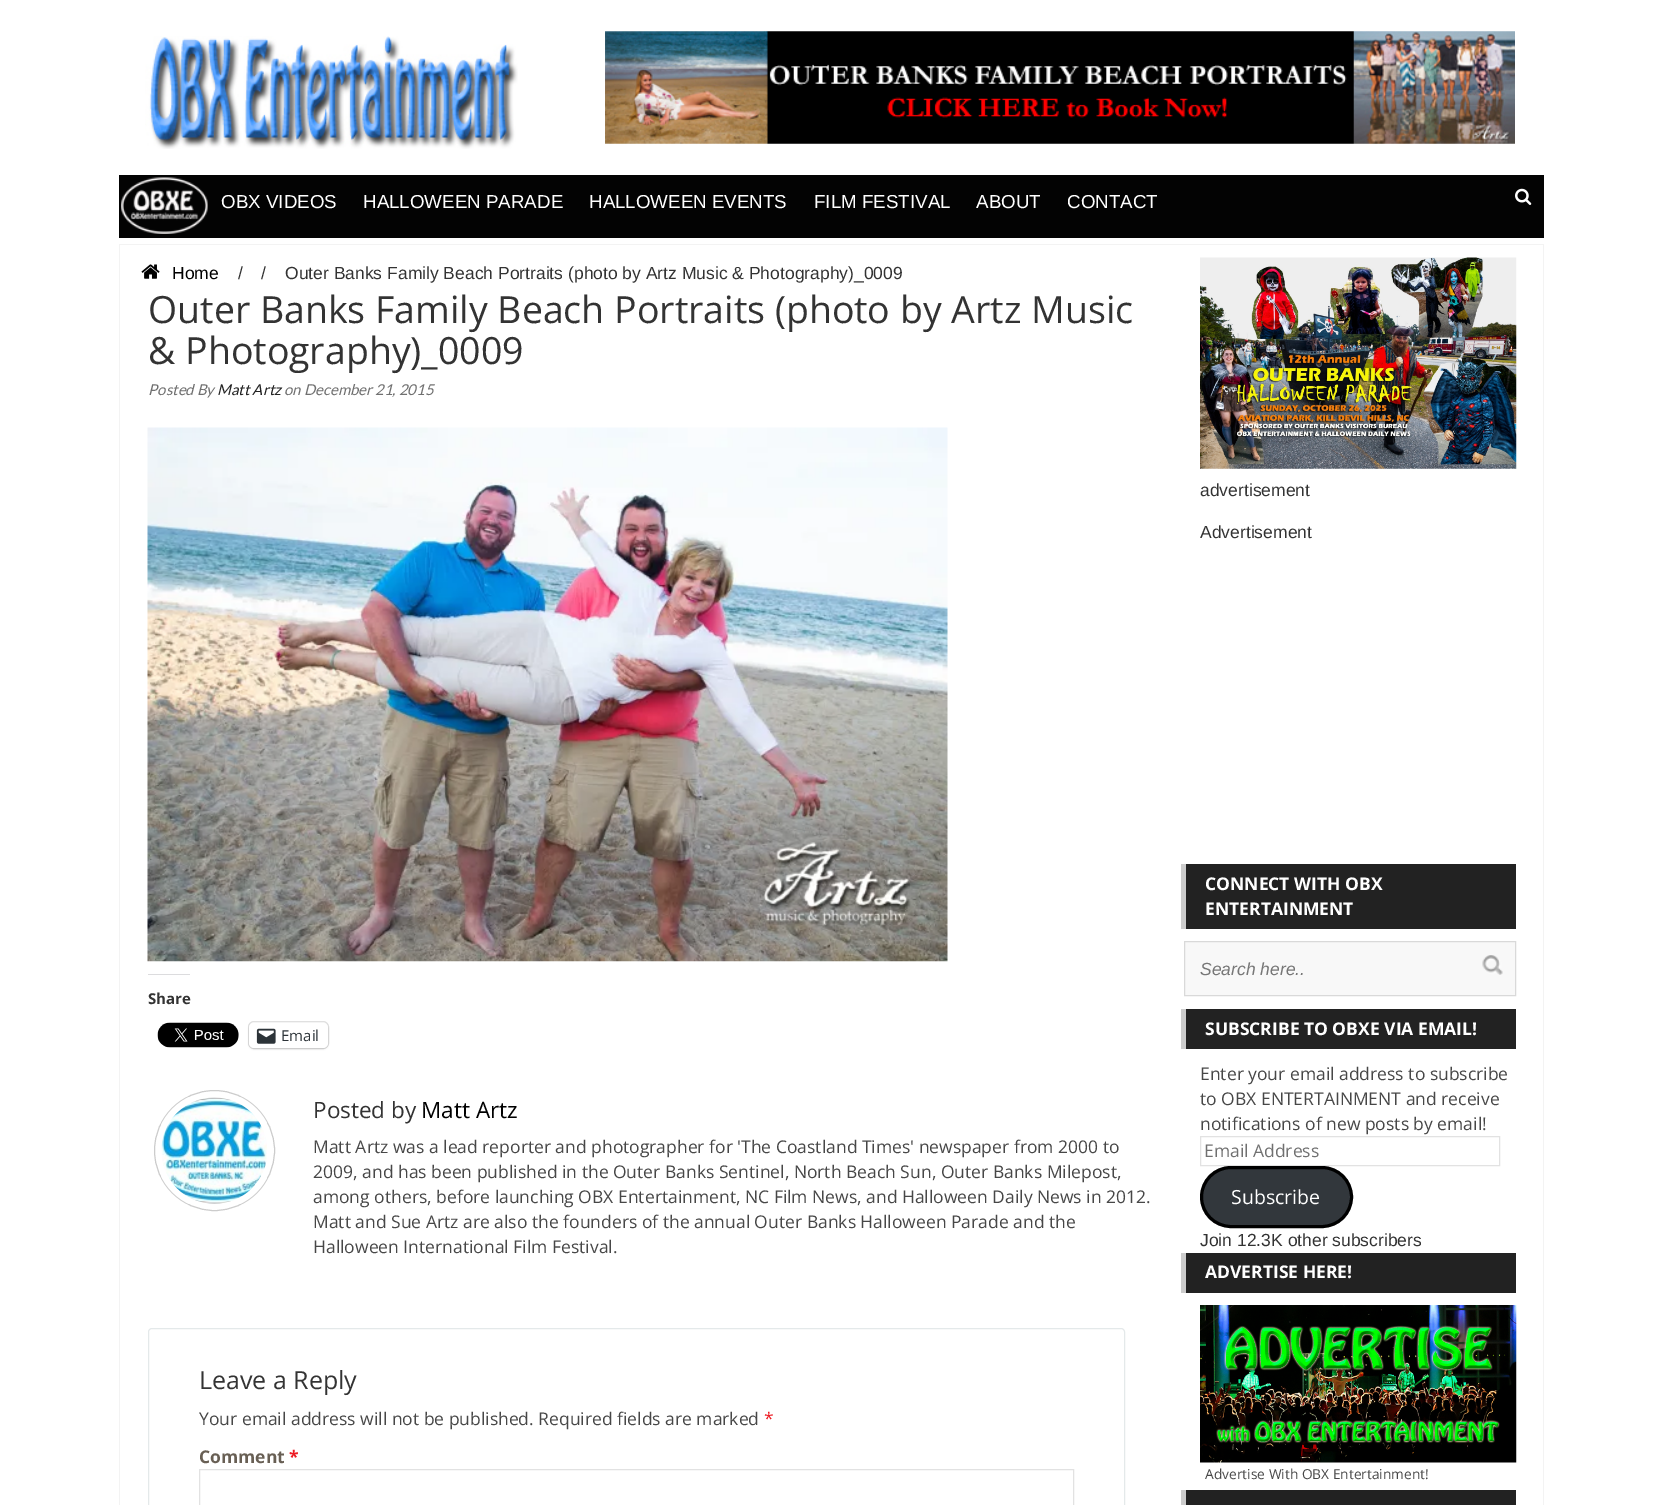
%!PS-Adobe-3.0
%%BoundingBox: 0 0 1662 1505
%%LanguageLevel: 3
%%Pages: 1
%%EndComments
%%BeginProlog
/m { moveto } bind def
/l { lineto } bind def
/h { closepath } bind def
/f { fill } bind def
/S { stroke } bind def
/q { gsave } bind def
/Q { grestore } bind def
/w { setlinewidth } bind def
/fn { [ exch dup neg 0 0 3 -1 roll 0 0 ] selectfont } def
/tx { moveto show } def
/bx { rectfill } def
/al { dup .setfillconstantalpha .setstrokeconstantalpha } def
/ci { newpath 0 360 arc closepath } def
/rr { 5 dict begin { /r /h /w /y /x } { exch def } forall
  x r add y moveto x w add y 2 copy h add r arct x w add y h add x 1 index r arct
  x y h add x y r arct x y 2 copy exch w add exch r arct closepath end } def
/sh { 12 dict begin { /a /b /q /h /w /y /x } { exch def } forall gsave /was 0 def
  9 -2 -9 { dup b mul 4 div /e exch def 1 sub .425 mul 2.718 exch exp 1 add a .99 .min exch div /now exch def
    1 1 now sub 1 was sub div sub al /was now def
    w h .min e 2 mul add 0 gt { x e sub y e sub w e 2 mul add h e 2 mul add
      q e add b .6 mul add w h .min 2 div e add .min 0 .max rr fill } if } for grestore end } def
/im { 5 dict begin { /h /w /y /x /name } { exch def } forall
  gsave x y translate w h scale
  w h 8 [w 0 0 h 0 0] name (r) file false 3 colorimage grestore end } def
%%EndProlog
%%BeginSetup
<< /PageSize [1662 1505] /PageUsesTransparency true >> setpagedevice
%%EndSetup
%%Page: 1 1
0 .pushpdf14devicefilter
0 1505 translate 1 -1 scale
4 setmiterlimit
1 setgray
0 0 1662 1505 bx
(image0.raw) 145 36 373 113 im
(image1.raw) 605 31 910 113 im
0.012 setgray
119 175 1425 63 bx
(image2.raw) 121 177 87 57 im
/LiberationSans-Regular 18.75 fn
1 setgray
(OBX VIDEOS) 221 208 tx
(HALLOWEEN PARADE) 363 208 tx
(HALLOWEEN EVENTS) 589 208 tx
(FILM FESTIVAL) 814 208 tx
(ABOUT) 976 208 tx
(CONTACT) 1067 208 tx
(image3.raw) 1515 188 17 17 im
0.953 setgray
119 244 1425 1 bx
1543 244 1 1261 bx
119 244 1 1261 bx
(image4.raw) 141 264 19 15 im
/LiberationSans-Regular 17.5 fn
0 setgray
(Home) 172 279 tx
0.2 setgray
(/) 238 279 tx
(/) 261 279 tx
(Outer Banks Family Beach Portraits \(photo by Artz Music & Photography\)_0009) 285 279 tx
/OpenSans-Regular 37.5 fn
(Outer Banks Family Beach Portraits \(photo by Artz Music) 148 323 tx
(& Photography\)_0009) 148 364 tx
/Lato-Italic 15 fn
0.439 setgray
(Posted By) 148 395 tx
0.133 setgray
(Matt Artz) 217 395 tx
0.439 setgray
(on December 21, 2015) 284 395 tx
(image5.raw) 147 427 801 535 im
0.863 0.863 0.871 setrgbcolor
148 974 42 1 bx
/OpenSans-Bold 15 fn
0.2 setgray
(Share) 148 1004 tx
(image6.raw) 157 1022 82 26 im
0.878 setgray
248.5 1021.5 80 27 5.5 rr S
0 setgray
249 1024 79 25 5 1 0.12 sh
1 setgray
249 1023 79 25 5 rr f
(image7.raw) 256 1028 20 16 im
/OpenSans-Regular 15 fn
0.173 0.2 0.22 setrgbcolor
(Email) 281 1041 tx
0.8 setgray
214.5 1150.5 60 ci S
(image8.raw) 161 1097 106 107 im
/OpenSans-Regular 22.5 fn
0.2 setgray
(Posted by) 313 1118 tx
0 setgray
(Matt Artz) 421 1118 tx
/OpenSans-Regular 17.5 fn
0.278 setgray
(Matt Artz was a lead reporter and photographer for 'The Coastland Times' newspaper from 2000 to) 313 1153 tx
(2009, and has been published in the Outer Banks Sentinel, North Beach Sun, Outer Banks Milepost,) 313 1178 tx
(among others, before launching OBX Entertainment, NC Film News, and Halloween Daily News in 2012.) 313 1203 tx
(Matt and Sue Artz are also the founders of the annual Outer Banks Halloween Parade and the) 313 1228 tx
(Halloween International Film Festival.) 313 1253 tx
0.894 0.914 0.918 setrgbcolor
148.5 1328.5 976 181 3.5 rr S
/OpenSans-Regular 25 fn
0.2 setgray
(Leave a Reply) 199 1389 tx
/OpenSans-Regular 17.5 fn
0.278 setgray
(Your email address will not be published. Required fields are marked) 199 1425 tx
0.929 0.11 0.141 setrgbcolor
(*) 764 1425 tx
/OpenSans-Bold 17.5 fn
0.408 0.373 0.329 setrgbcolor
(Comment) 199 1463 tx
0.929 0.11 0.141 setrgbcolor
(*) 289 1463 tx
0.886 setgray
199.5 1469.5 874 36 rectstroke
(image9.raw) 1200 257 317 212 im
/LiberationSans-Regular 17.5 fn
0.2 setgray
(advertisement) 1200 496 tx
(Advertisement) 1200 538 tx
0.133 setgray
1186 864 330 65 bx
0.8 setgray
1181 864 5 65 bx
/OpenSans-Bold 17.5 fn
1 setgray
(CONNECT WITH OBX) 1205 890 tx
(ENTERTAINMENT) 1205 915 tx
0.973 setgray
1184.5 941.5 m 1515.5 941.5 l 1515.5 995.5 l 1184.5 995.5 l h q f Q
0.851 setgray
S
/LiberationSans-Italic 17.5 fn
0.467 setgray
(Search here..) 1200 975 tx
(image10.raw) 1482 955 21 20 im
0.133 setgray
1186 1009 330 40 bx
0.8 setgray
1181 1009 5 40 bx
/OpenSans-Bold 17.5 fn
1 setgray
(SUBSCRIBE TO OBXE VIA EMAIL!) 1205 1035 tx
/OpenSans-Regular 17.5 fn
0.278 setgray
(Enter your email address to subscribe) 1200 1080 tx
(to OBX ENTERTAINMENT and receive) 1200 1105 tx
(notifications of new posts by email!) 1200 1130 tx
0.886 setgray
1200.5 1136.5 299 29 rectstroke
0.439 setgray
(Email Address) 1204 1157 tx
0.196 0.216 0.235 setrgbcolor
1201.5 1167.5 150 59 29.5 rr q f Q
0 setgray
3 w
S
/OpenSans-Regular 19.5 fn
1 setgray
(Subscribe) 1231 1204 tx
/LiberationSans-Regular 17.5 fn
0.2 setgray
(Join 12.3K other subscribers) 1200 1246 tx
0.133 setgray
1186 1253 330 40 bx
0.8 setgray
1181 1253 5 40 bx
/OpenSans-Bold 17.5 fn
1 setgray
(ADVERTISE HERE!) 1205 1278 tx
(image11.raw) 1200 1305 317 158 im
/OpenSans-Regular 13.75 fn
0.278 setgray
(Advertise With OBX Entertainment!) 1205 1479 tx
0.133 setgray
1186 1490 330 15 bx
0.8 setgray
1181 1490 5 15 bx
.poppdf14devicefilter showpage
%%EOF
